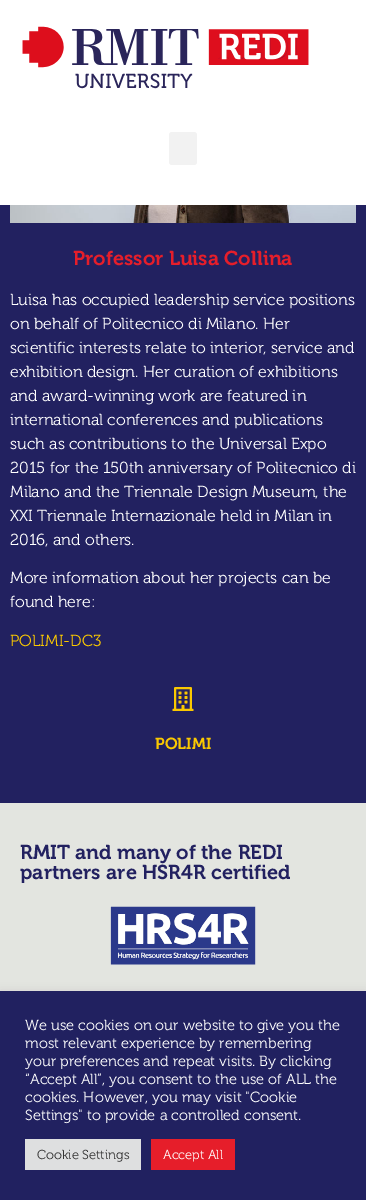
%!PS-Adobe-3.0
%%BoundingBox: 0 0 366 1200
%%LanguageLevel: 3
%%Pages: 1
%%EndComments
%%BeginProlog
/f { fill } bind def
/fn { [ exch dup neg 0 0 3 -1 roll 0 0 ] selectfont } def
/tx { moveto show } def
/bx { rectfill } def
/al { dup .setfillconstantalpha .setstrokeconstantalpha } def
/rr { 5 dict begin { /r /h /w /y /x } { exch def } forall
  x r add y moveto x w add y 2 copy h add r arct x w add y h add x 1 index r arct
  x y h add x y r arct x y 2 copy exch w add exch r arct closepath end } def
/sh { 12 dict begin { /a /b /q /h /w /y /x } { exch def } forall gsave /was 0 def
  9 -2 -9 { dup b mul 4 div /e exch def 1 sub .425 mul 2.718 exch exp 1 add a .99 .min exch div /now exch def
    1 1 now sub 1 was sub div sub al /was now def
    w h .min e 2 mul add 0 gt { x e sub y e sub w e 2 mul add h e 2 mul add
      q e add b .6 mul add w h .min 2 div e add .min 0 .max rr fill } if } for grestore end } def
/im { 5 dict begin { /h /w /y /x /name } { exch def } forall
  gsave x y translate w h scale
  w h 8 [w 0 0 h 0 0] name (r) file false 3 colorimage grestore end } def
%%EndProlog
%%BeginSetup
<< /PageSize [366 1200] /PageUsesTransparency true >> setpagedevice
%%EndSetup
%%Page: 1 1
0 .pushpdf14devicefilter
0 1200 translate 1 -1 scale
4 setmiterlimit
0.133 0.129 0.376 setrgbcolor
0 0 366 1200 bx
1 setgray
0 0 366 205 bx
(image0.raw) 22 26 287 63 im
0.949 setgray
169 132 28 33 3 rr f
(image1.raw) 10 205 346 18 im
/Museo-SemiBold 20 fn
0.902 0.118 0.165 setrgbcolor
(Professor Luisa Collina) 73 265 tx
/Museo-Light 16 fn
1 setgray
(Luisa has occupied leadership service positions) 10 305 tx
(on behalf of Politecnico di Milano. Her) 10 329 tx
(scientific interests relate to interior, service and) 10 353 tx
(exhibition design. Her curation of exhibitions) 10 377 tx
(and award-winning work are featured in) 10 401 tx
(international conferences and publications) 10 425 tx
(such as contributions to the Universal Expo) 10 449 tx
(2015 for the 150th anniversary of Politecnico di) 10 473 tx
(Milano and the Triennale Design Museum, the) 10 497 tx
(XXI Triennale Internazionale held in Milan in) 10 521 tx
(2016, and others.) 10 545 tx
(More information about her projects can be) 10 583 tx
(found here:) 10 607 tx
0.98 0.784 0 setrgbcolor
(POLIMI-DC3) 10 646 tx
(image2.raw) 172 687 22 24 im
/Museo-SemiBold 16 fn
(POLIMI) 155 749 tx
0.89 0.898 0.878 setrgbcolor
0 803 366 188 bx
/Museo-SemiBold 20 fn
0.133 0.129 0.376 setrgbcolor
(RMIT and many of the REDI) 20 859 tx
(partners are HSR4R certified) 20 879 tx
(image3.raw) 110 906 146 59 im
0.675 0.671 0.671 setrgbcolor
0 990 366 209 0 5 0.3 sh
0.129 0.129 0.376 setrgbcolor
0 991 366 209 bx
/Museo-Light 14.7 fn
1 setgray
(We use cookies on our website to give you the) 25 1030 tx
(most relevant experience by remembering) 25 1048 tx
(your preferences and repeat visits. By clicking) 25 1066 tx
(“Accept All”, you consent to the use of ALL the) 25 1084 tx
(cookies. However, you may visit "Cookie) 25 1102 tx
(Settings" to provide a controlled consent.) 25 1120 tx
0.871 0.875 0.878 setrgbcolor
25 1139 116 31 bx
/Museo-Light 13 fn
0.2 setgray
(Cookie Settings) 37 1159 tx
0.902 0.118 0.165 setrgbcolor
151 1139 84 31 bx
1 setgray
(Accept All) 163 1159 tx
.poppdf14devicefilter showpage
%%EOF
